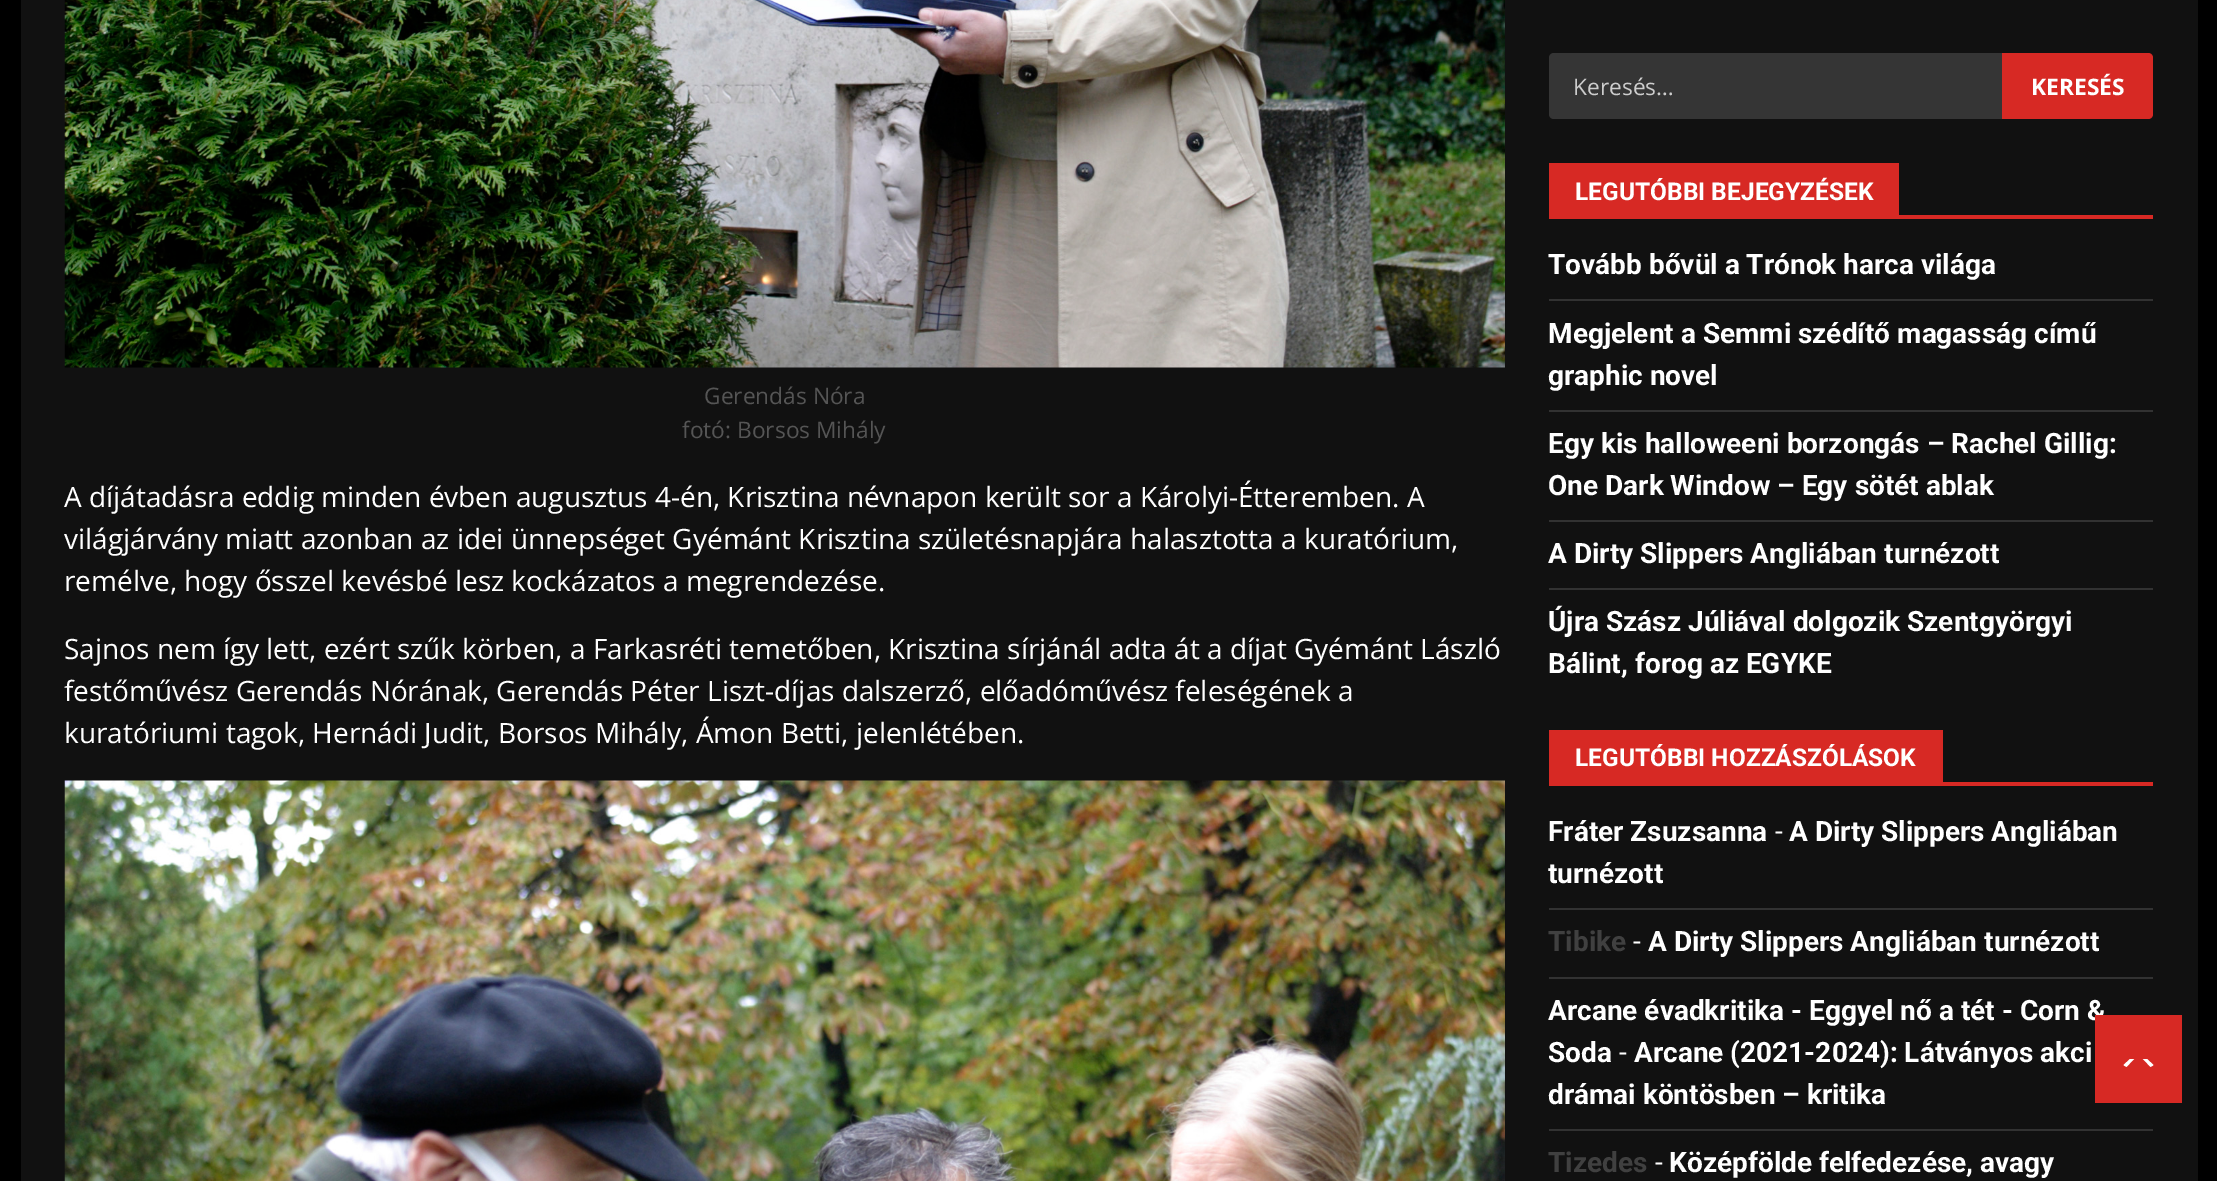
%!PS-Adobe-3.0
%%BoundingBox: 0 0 2217 1181
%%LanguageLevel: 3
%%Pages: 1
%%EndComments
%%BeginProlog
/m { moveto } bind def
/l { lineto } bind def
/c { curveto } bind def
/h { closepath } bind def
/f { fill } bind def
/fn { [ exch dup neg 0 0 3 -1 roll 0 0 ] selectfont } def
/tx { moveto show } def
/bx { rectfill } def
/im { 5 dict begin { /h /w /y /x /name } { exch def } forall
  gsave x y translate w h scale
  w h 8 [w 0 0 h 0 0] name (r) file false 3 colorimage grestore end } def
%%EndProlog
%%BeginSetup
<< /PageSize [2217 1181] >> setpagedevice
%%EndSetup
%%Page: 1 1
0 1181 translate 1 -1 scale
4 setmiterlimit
0 setgray
0 0 2217 1181 bx
0.067 setgray
21 0 2177 1181 bx
(image0.raw) 64 0 1441 368 im
/OpenSans-Regular 22.75 fn
0.333 setgray
(Gerendás Nóra) 704 404 tx
(fotó: Borsos Mihály) 682 438 tx
/OpenSans-Regular 28 fn
1 setgray
(A díjátadásra eddig minden évben augusztus 4-én, Krisztina névnapon került sor a Károlyi-Étteremben. A) 64 507 tx
(világjárvány miatt azonban az idei ünnepséget Gyémánt Krisztina születésnapjára halasztotta a kuratórium,) 64 549 tx
(remélve, hogy ősszel kevésbé lesz kockázatos a megrendezése.) 64 591 tx
(Sajnos nem így lett, ezért szűk körben, a Farkasréti temetőben, Krisztina sírjánál adta át a díjat Gyémánt László) 64 659 tx
(festőművész Gerendás Nórának, Gerendás Péter Liszt-díjas dalszerző, előadóművész feleségének a) 64 701 tx
(kuratóriumi tagok, Hernádi Judit, Borsos Mihály, Ámon Betti, jelenlétében.) 64 743 tx
(image1.raw) 64 780 1441 401 im
0.208 setgray
1554 53 m 2002 53 l 2002 119 l 1554 119 l 1551 119 1549 117 1549 114 c 1549 58 l 1549 55 1551 53 1554 53 c h f
/OpenSans-Regular 22.75 fn
0.804 setgray
(Keresés…) 1573 95 tx
0.843 0.161 0.141 setrgbcolor
2002 53 m 2148 53 l 2151 53 2153 55 2153 58 c 2153 114 l 2153 117 2151 119 2148 119 c 2002 119 l h f
/OpenSans-Bold 22.75 fn
1 setgray
(KERESÉS) 2031 95 tx
0.843 0.161 0.141 setrgbcolor
1549 215 604 4 bx
1549 163 350 52 bx
/Roboto-Bold 24.5 fn
1 setgray
(LEGUTÓBBI BEJEGYZÉSEK) 1575 200 tx
0.196 setgray
1549 299 604 2 bx
/Roboto-Bold 28 fn
1 setgray
(Tovább bővül a Trónok harca világa) 1548 274 tx
0.196 setgray
1549 410 604 2 bx
1 setgray
(Megjelent a Semmi szédítő magasság című) 1548 343 tx
(graphic novel) 1548 385 tx
0.196 setgray
1549 520 604 2 bx
1 setgray
(Egy kis halloweeni borzongás – Rachel Gillig:) 1548 453 tx
(One Dark Window – Egy sötét ablak) 1548 495 tx
0.196 setgray
1549 588 604 2 bx
1 setgray
(A Dirty Slippers Angliában turnézott) 1548 563 tx
(Újra Szász Júliával dolgozik Szentgyörgyi) 1548 631 tx
(Bálint, forog az EGYKE) 1548 673 tx
0.843 0.161 0.141 setrgbcolor
1549 782 604 4 bx
1549 730 394 52 bx
/Roboto-Bold 24.5 fn
1 setgray
(LEGUTÓBBI HOZZÁSZÓLÁSOK) 1575 766 tx
0.196 setgray
1549 908 604 2 bx
/Roboto-Bold 28 fn
1 setgray
(Fráter Zsuzsanna) 1548 841 tx
/Roboto-Regular 28 fn
(-) 1775 841 tx
/Roboto-Bold 28 fn
(A Dirty Slippers Angliában) 1789 841 tx
(turnézott) 1548 883 tx
0.196 setgray
1549 977 604 2 bx
0.251 setgray
(Tibike) 1548 951 tx
/Roboto-Regular 28 fn
1 setgray
(-) 1633 951 tx
/Roboto-Bold 28 fn
(A Dirty Slippers Angliában turnézott) 1648 951 tx
0.196 setgray
1549 1129 604 2 bx
1 setgray
(Arcane évadkritika - Eggyel nő a tét - Corn &) 1548 1020 tx
(Soda) 1548 1062 tx
/Roboto-Regular 28 fn
(-) 1619 1062 tx
/Roboto-Bold 28 fn
(Arcane \(2021-2024\): Látványos akci) 1634 1062 tx
(drámai köntösben – kritika) 1548 1104 tx
0.251 setgray
(Tizedes) 1548 1172 tx
/Roboto-Regular 28 fn
1 setgray
(-) 1655 1172 tx
/Roboto-Bold 28 fn
(Középfölde felfedezése, avagy) 1669 1172 tx
0.843 0.161 0.141 setrgbcolor
2095 1015 87 88 bx
1 setgray
2130 1067.5 m 2147 1067.5 l 2149.5 1067.5 2152 1066.5 2153.5 1065 c 2147 1059 l 2130 1059 l 2123.5 1065 l 2125 1066.5 2127.5 1067.5 2130 1067.5 c h f
0.843 0.161 0.141 setrgbcolor
2156 1073 m 2121 1073 l 2138.5 1055 l h f
showpage
%%EOF
